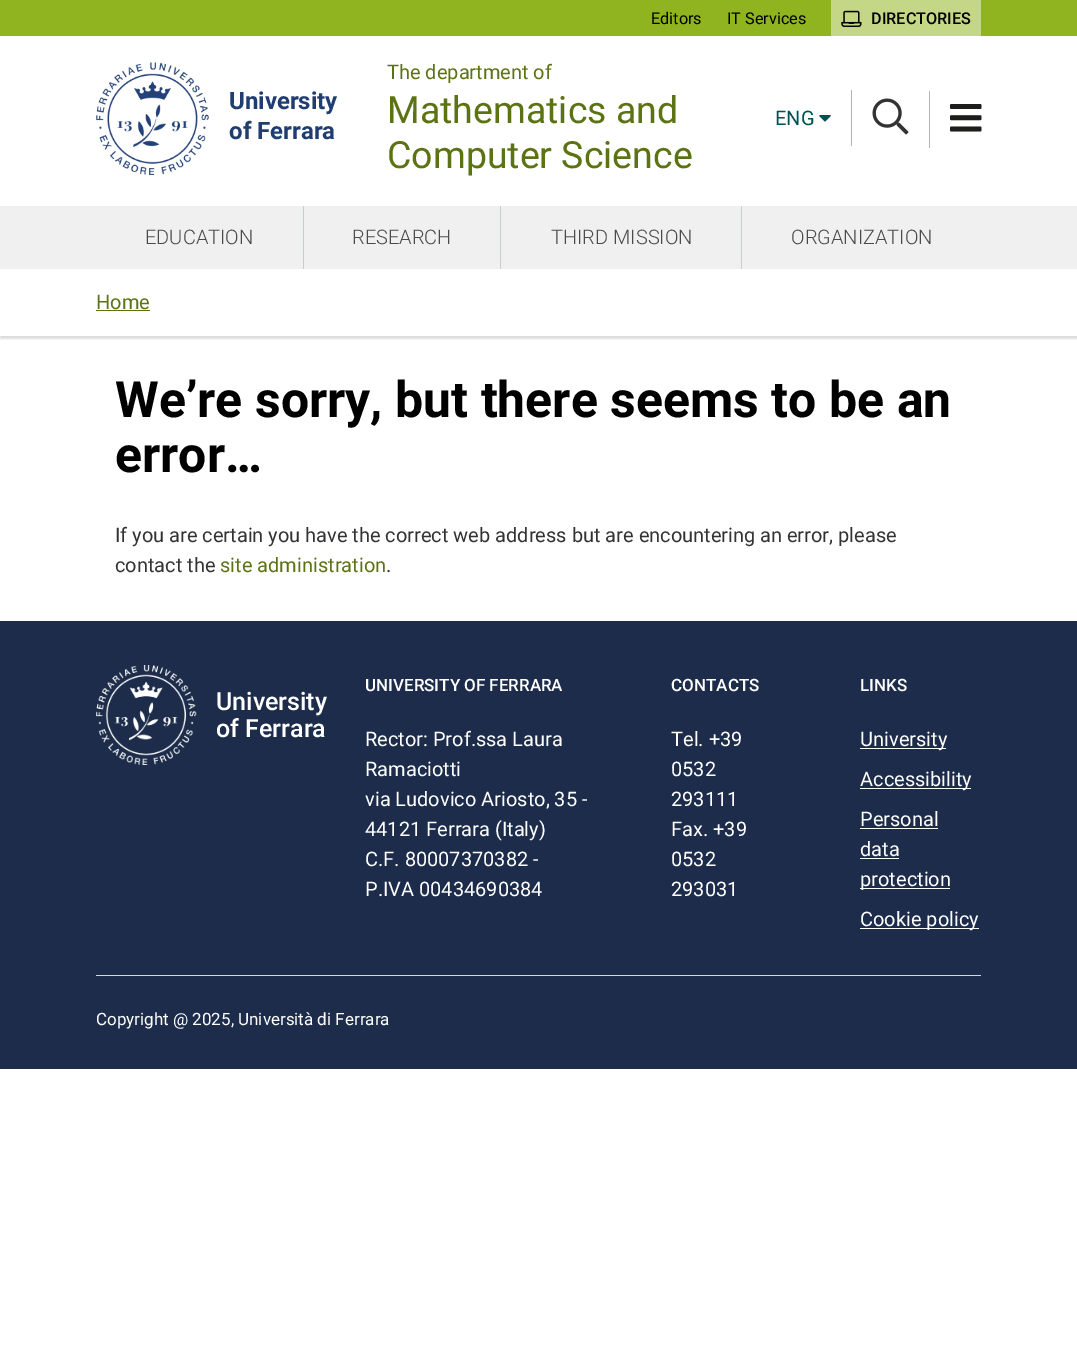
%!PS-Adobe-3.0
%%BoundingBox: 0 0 1077 1350
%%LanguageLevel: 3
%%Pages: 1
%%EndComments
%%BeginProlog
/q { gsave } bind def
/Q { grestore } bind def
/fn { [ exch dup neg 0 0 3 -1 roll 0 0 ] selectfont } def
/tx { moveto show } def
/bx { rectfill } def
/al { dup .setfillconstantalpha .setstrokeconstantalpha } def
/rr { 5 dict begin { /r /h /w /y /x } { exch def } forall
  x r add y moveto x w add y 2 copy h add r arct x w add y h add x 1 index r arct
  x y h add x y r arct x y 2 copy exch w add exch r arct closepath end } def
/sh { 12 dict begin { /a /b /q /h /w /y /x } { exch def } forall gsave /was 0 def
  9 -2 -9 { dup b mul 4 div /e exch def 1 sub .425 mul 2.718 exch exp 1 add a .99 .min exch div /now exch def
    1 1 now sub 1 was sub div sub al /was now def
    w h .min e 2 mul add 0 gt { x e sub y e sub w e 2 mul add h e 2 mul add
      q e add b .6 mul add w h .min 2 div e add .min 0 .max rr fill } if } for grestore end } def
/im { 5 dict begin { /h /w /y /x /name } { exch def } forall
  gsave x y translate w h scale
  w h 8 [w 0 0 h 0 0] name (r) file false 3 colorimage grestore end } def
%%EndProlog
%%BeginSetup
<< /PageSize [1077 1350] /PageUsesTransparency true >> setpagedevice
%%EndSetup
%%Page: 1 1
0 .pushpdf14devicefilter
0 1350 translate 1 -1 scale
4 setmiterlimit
1 setgray
0 0 1077 1350 bx
0.565 0.706 0.125 setrgbcolor
0 0 1077 36 bx
/Roboto-Regular 16.25 fn
0 setgray
(Editors) 651 24 tx
(IT Services) 727 24 tx
0.765 0.843 0.529 setrgbcolor
831 0 150 36 bx
(image0.raw) 841 10 21 17 im
/Roboto-Medium 16.25 fn
0 setgray
(DIRECTORIES) 871 24 tx
(image1.raw) 96 62 113 113 im
/Roboto-Bold 24 fn
0.125 0.239 0.443 setrgbcolor
(University) 229 109 tx
(of Ferrara) 229 139 tx
/Roboto-Regular 20 fn
0.361 0.451 0.078 setrgbcolor
(The department of) 387 79 tx
/Roboto-Regular 37.5 fn
(Mathematics and) 387 123 tx
(Computer Science) 387 168 tx
/Roboto-Regular 20 fn
0 0.322 0.322 setrgbcolor
(ENG) 775 125 tx
(image2.raw) 819 115 12 7 im
0.702 setgray
851 90 1 56 bx
(image3.raw) 872 98 37 37 im
929 91 1 57 bx
(image4.raw) 950 104 32 28 im
q
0 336 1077 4 rectclip
0 setgray
0 271 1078 68 0 1 0.13 sh
Q
0.941 setgray
0 206 1077 63 bx
0.784 0.808 0.804 setrgbcolor
303 206 1 63 bx
/Roboto-Light 20 fn
0.29 setgray
(EDUCATION) 145 244 tx
0.784 0.808 0.804 setrgbcolor
500 206 1 63 bx
0.29 setgray
(RESEARCH) 352 244 tx
0.784 0.808 0.804 setrgbcolor
741 206 1 63 bx
0.29 setgray
(THIRD MISSION) 551 244 tx
(ORGANIZATION) 791 244 tx
/Roboto-Regular 20 fn
0.361 0.451 0.078 setrgbcolor
(Home) 96 309 tx
96 310 54 1 bx
/Roboto-Bold 50 fn
0 setgray
(We’re sorry, but there seems to be an) 115 417 tx
(error…) 115 472 tx
/Roboto-Regular 20 fn
0.2 setgray
(If you are certain you have the correct web address but are encountering an error, please) 115 542 tx
(contact the) 115 572 tx
0.361 0.451 0.078 setrgbcolor
(site administration) 220 572 tx
0.2 setgray
(.) 386 572 tx
0.11 0.173 0.29 setrgbcolor
0 621 1077 448 bx
(image5.raw) 96 665 101 100 im
/Roboto-Medium 25 fn
1 setgray
(University) 216 710 tx
(of Ferrara) 216 737 tx
/Roboto-Medium 17 fn
(UNIVERSITY OF FERRARA) 365 691 tx
/Roboto-Regular 20 fn
(Rector: Prof.ssa Laura) 365 746 tx
(Ramaciotti) 365 776 tx
(via Ludovico Ariosto, 35 -) 365 806 tx
(44121 Ferrara \(Italy\)) 365 836 tx
(C.F. 80007370382 -) 365 866 tx
(P.IVA 00434690384) 365 896 tx
/Roboto-Medium 17 fn
(CONTACTS) 671 691 tx
/Roboto-Regular 20 fn
(Tel. +39) 671 746 tx
(0532) 671 776 tx
(293111) 671 806 tx
(Fax. +39) 671 836 tx
(0532) 671 866 tx
(293031) 671 896 tx
/Roboto-Medium 17 fn
(LINKS) 860 691 tx
860 748 86 1 bx
/Roboto-Regular 20 fn
(University) 860 746 tx
860 788 111 1 bx
(Accessibility) 860 786 tx
(Personal) 860 826 tx
860 828 78 1 bx
(data) 860 856 tx
860 858 39 1 bx
860 888 90 1 bx
(protection) 860 886 tx
860 928 119 1 bx
(Cookie policy) 860 926 tx
0.847 setgray
96 975 885 1 bx
/Roboto-Regular 17 fn
1 setgray
(Copyright @ 2025, Università di Ferrara) 96 1025 tx
.poppdf14devicefilter showpage
%%EOF
